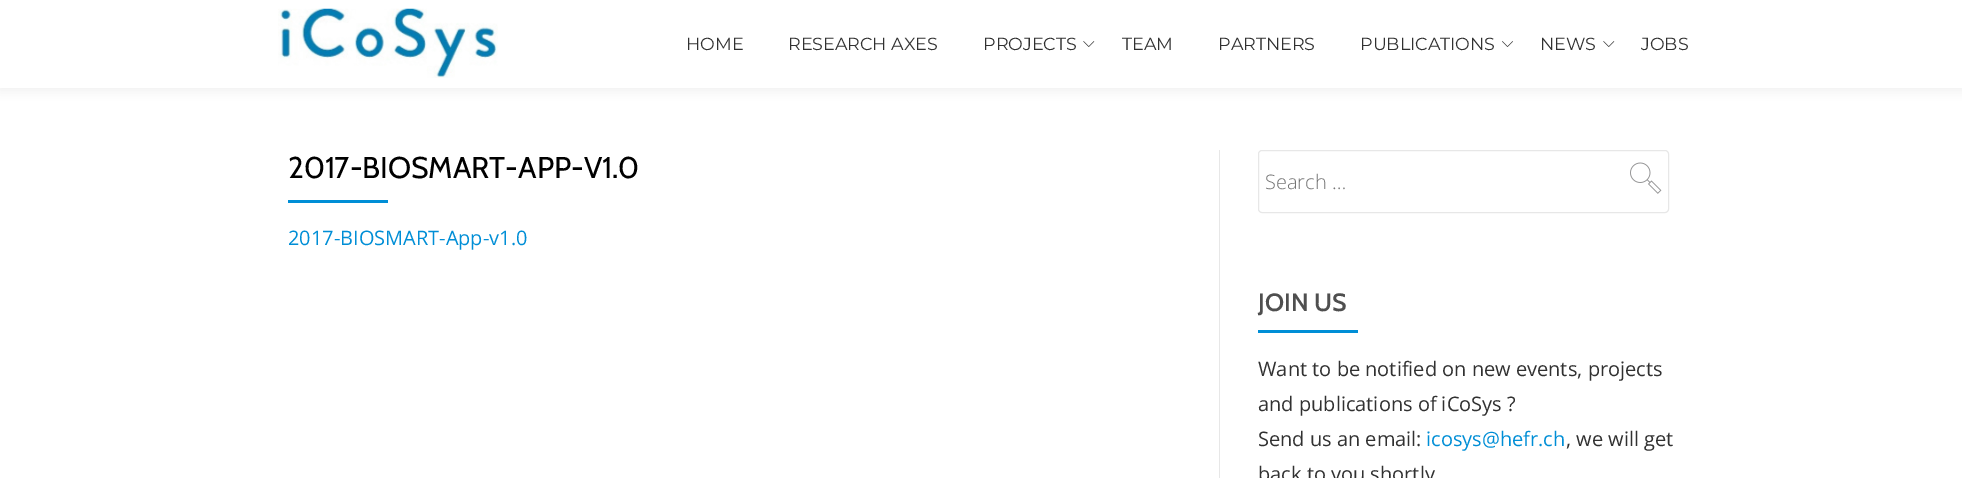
%!PS-Adobe-3.0
%%BoundingBox: 0 0 1962 478
%%LanguageLevel: 3
%%Pages: 1
%%EndComments
%%BeginProlog
/S { stroke } bind def
/fn { [ exch dup neg 0 0 3 -1 roll 0 0 ] selectfont } def
/tx { moveto show } def
/bx { rectfill } def
/al { dup .setfillconstantalpha .setstrokeconstantalpha } def
/rr { 5 dict begin { /r /h /w /y /x } { exch def } forall
  x r add y moveto x w add y 2 copy h add r arct x w add y h add x 1 index r arct
  x y h add x y r arct x y 2 copy exch w add exch r arct closepath end } def
/sh { 12 dict begin { /a /b /q /h /w /y /x } { exch def } forall gsave /was 0 def
  9 -2 -9 { dup b mul 4 div /e exch def 1 sub .425 mul 2.718 exch exp 1 add a .99 .min exch div /now exch def
    1 1 now sub 1 was sub div sub al /was now def
    w h .min e 2 mul add 0 gt { x e sub y e sub w e 2 mul add h e 2 mul add
      q e add b .6 mul add w h .min 2 div e add .min 0 .max rr fill } if } for grestore end } def
/im { 5 dict begin { /h /w /y /x /name } { exch def } forall
  gsave x y translate w h scale
  w h 8 [w 0 0 h 0 0] name (r) file false 3 colorimage grestore end } def
%%EndProlog
%%BeginSetup
<< /PageSize [1962 478] /PageUsesTransparency true >> setpagedevice
%%EndSetup
%%Page: 1 1
0 .pushpdf14devicefilter
0 478 translate 1 -1 scale
4 setmiterlimit
1 setgray
0 0 1962 478 bx
0.196 setgray
0 3 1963 87 0 5 0.08 sh
1 setgray
0 0 1962 88 bx
(image0.raw) 278 8 220 70 im
/Montserrat-Regular 17.5 fn
0.192 setgray
(HOME) 686 50 tx
(RESEARCH AXES) 788 50 tx
(PROJECTS) 983 50 tx
(image1.raw) 1083 41 12 6 im
(TEAM) 1122 50 tx
(PARTNERS) 1218 50 tx
(PUBLICATIONS) 1360 50 tx
(image2.raw) 1502 41 11 6 im
(NEWS) 1540 50 tx
(image1.raw) 1603 41 12 6 im
(JOBS) 1641 50 tx
/Cabin-Regular 30 fn
0 setgray
(2017-BIOSMART-APP-V1.0) 288 178 tx
0 0.557 0.839 setrgbcolor
288 200 100 3 bx
/OpenSans-Regular 20 fn
(2017-BIOSMART-App-v1.0) 288 245 tx
0.906 setgray
1219 150 1 328 bx
1258.5 150.5 410 62 3.5 rr S
/OpenSans-Light 20 fn
0.459 setgray
(Search …) 1265 189 tx
(image3.raw) 1630 162 32 32 im
/Cabin-SemiBold 25 fn
0.31 setgray
(JOIN US) 1258 311 tx
0 0.557 0.839 setrgbcolor
1258 330 100 3 bx
/OpenSans-Regular 20 fn
0.192 setgray
(Want to be notified on new events, projects) 1258 376 tx
(and publications of iCoSys ?) 1258 411 tx
(Send us an email:) 1258 446 tx
0 0.557 0.839 setrgbcolor
(icosys@hefr.ch) 1426 446 tx
0.192 setgray
(, we will get) 1566 446 tx
(back to you shortly) 1258 481 tx
.poppdf14devicefilter showpage
%%EOF
